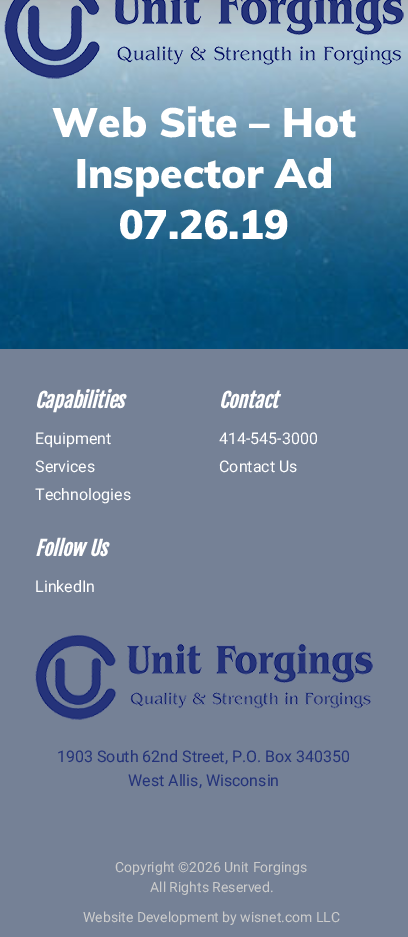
%!PS-Adobe-3.0
%%BoundingBox: 0 0 408 937
%%LanguageLevel: 3
%%Pages: 1
%%EndComments
%%BeginProlog
/fn { [ exch dup neg 0 0 3 -1 roll 0 0 ] selectfont } def
/tx { moveto show } def
/bx { rectfill } def
/im { 5 dict begin { /h /w /y /x /name } { exch def } forall
  gsave x y translate w h scale
  w h 8 [w 0 0 h 0 0] name (r) file false 3 colorimage grestore end } def
%%EndProlog
%%BeginSetup
<< /PageSize [408 937] >> setpagedevice
%%EndSetup
%%Page: 1 1
0 937 translate 1 -1 scale
4 setmiterlimit
0.459 0.506 0.588 setrgbcolor
0 0 408 937 bx
(image1.raw) 0 0 408 349 im
(image0.raw) 4 0 400 79 im
/Muli-Black 40.75 fn
1 setgray
(Web Site – Hot) 52 137 tx
(Inspector Ad) 75 188 tx
(07.26.19) 119 239 tx
/FjallaOne-BoldItalic 20 fn
(Capabilities) 35 408 tx
/Roboto-Regular 16 fn
(Equipment) 35 444 tx
(Services) 35 472 tx
(Technologies) 35 500 tx
/FjallaOne-BoldItalic 20 fn
(Contact) 219 408 tx
/Roboto-Regular 16 fn
(414-545-3000) 219 444 tx
(Contact Us) 219 472 tx
/FjallaOne-BoldItalic 20 fn
(Follow Us) 35 556 tx
/Roboto-Regular 16 fn
(LinkedIn) 35 592 tx
(image2.raw) 35 635 338 85 im
0.141 0.2 0.478 setrgbcolor
(1903 South 62nd Street, P.O. Box 340350) 57 762 tx
(West Allis, Wisconsin) 128 786 tx
/Roboto-Regular 14 fn
0.8 setgray
(Copyright ©2026 Unit Forgings) 115 872 tx
(All Rights Reserved.) 150 892 tx
(Website Development by wisnet.com LLC) 83 922 tx
showpage
%%EOF
